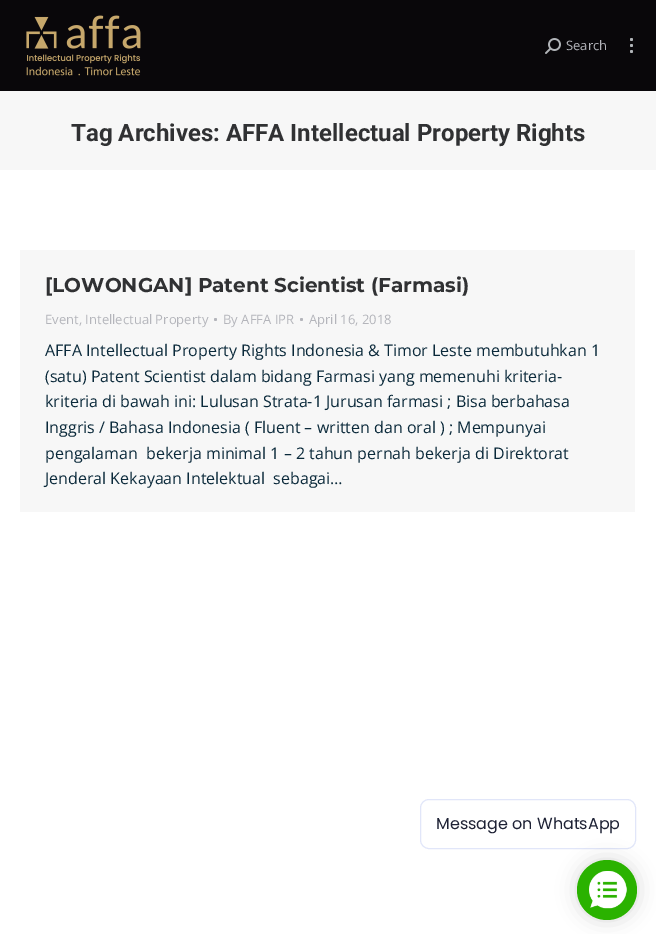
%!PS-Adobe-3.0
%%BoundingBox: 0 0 656 934
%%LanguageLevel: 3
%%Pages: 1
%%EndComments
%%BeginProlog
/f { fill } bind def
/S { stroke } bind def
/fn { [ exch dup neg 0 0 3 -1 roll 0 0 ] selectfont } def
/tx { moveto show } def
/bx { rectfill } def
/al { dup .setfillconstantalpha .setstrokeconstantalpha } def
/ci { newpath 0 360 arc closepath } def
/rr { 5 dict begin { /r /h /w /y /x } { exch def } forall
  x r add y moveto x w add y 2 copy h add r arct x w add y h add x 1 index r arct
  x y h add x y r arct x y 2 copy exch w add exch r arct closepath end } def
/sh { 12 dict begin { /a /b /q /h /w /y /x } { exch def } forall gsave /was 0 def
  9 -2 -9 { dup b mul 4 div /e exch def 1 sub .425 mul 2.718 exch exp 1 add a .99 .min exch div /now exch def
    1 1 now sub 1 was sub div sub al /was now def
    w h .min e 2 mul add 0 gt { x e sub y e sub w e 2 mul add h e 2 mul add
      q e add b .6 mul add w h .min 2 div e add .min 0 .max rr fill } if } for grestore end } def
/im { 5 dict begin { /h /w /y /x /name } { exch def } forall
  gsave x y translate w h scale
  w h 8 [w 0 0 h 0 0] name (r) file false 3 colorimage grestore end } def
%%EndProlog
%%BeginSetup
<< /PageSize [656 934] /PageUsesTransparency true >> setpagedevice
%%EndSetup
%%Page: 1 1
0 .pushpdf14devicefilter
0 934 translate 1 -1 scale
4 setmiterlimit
0.035 0.027 0.039 setrgbcolor
0 0 656 934 bx
(image0.raw) 26 15 115 61 im
(image1.raw) 545 38 16 16 im
/OpenSans-Regular 13 fn
0.706 0.71 0.733 setrgbcolor
(Search) 566 50 tx
0.694 0.706 0.722 setrgbcolor
631.5 39.5 1.5 ci f
631.5 45.5 1.5 ci f
631.5 51.5 1.5 ci f
1 setgray
0 170 656 764 bx
0.969 setgray
0 91 656 79 bx
/Roboto-Bold 24 fn
0.188 0.192 0.2 setrgbcolor
(Tag Archives: AFFA Intellectual Property Rights) 71 141 tx
0.969 setgray
20 250 615 262 bx
/Montserrat-Bold 20 fn
0.188 0.192 0.2 setrgbcolor
([LOWONGAN] Patent Scientist \(Farmasi\)) 45 292 tx
/OpenSans-Regular 13 fn
0.706 0.71 0.733 setrgbcolor
(Event, Intellectual Property) 45 324 tx
215.5 319.5 1.5 ci f
(By AFFA IPR) 223 324 tx
301.5 319.5 1.5 ci f
(April 16, 2018) 309 324 tx
/OpenSans-Regular 16 fn
0.039 0.161 0.227 setrgbcolor
(AFFA Intellectual Property Rights Indonesia & Timor Leste membutuhkan 1) 45 356 tx
(\(satu\) Patent Scientist dalam bidang Farmasi yang memenuhi kriteria-) 45 382 tx
(kriteria di bawah ini: Lulusan Strata-1 Jurusan farmasi ; Bisa berbahasa) 45 407 tx
(Inggris / Bahasa Indonesia \( Fluent – written dan oral \) ; Mempunyai) 45 433 tx
(pengalaman  bekerja minimal 1 – 2 tahun pernah bekerja di Direktorat) 45 459 tx
(Jenderal Kekayaan Intelektual  sebagai…) 45 484 tx
0.882 0.902 0.976 setrgbcolor
420.5 799.5 215 49 8.5 rr S
/Poppins-Regular 16 fn
0.118 0.133 0.208 setrgbcolor
(Message on WhatsApp) 436 829 tx
0 setgray
577 860 60 60 30 10 0.15 sh
0.165 0.698 0 setrgbcolor
607 890 30 ci f
(image2.raw) 589 871 38 38 im
.poppdf14devicefilter showpage
%%EOF
